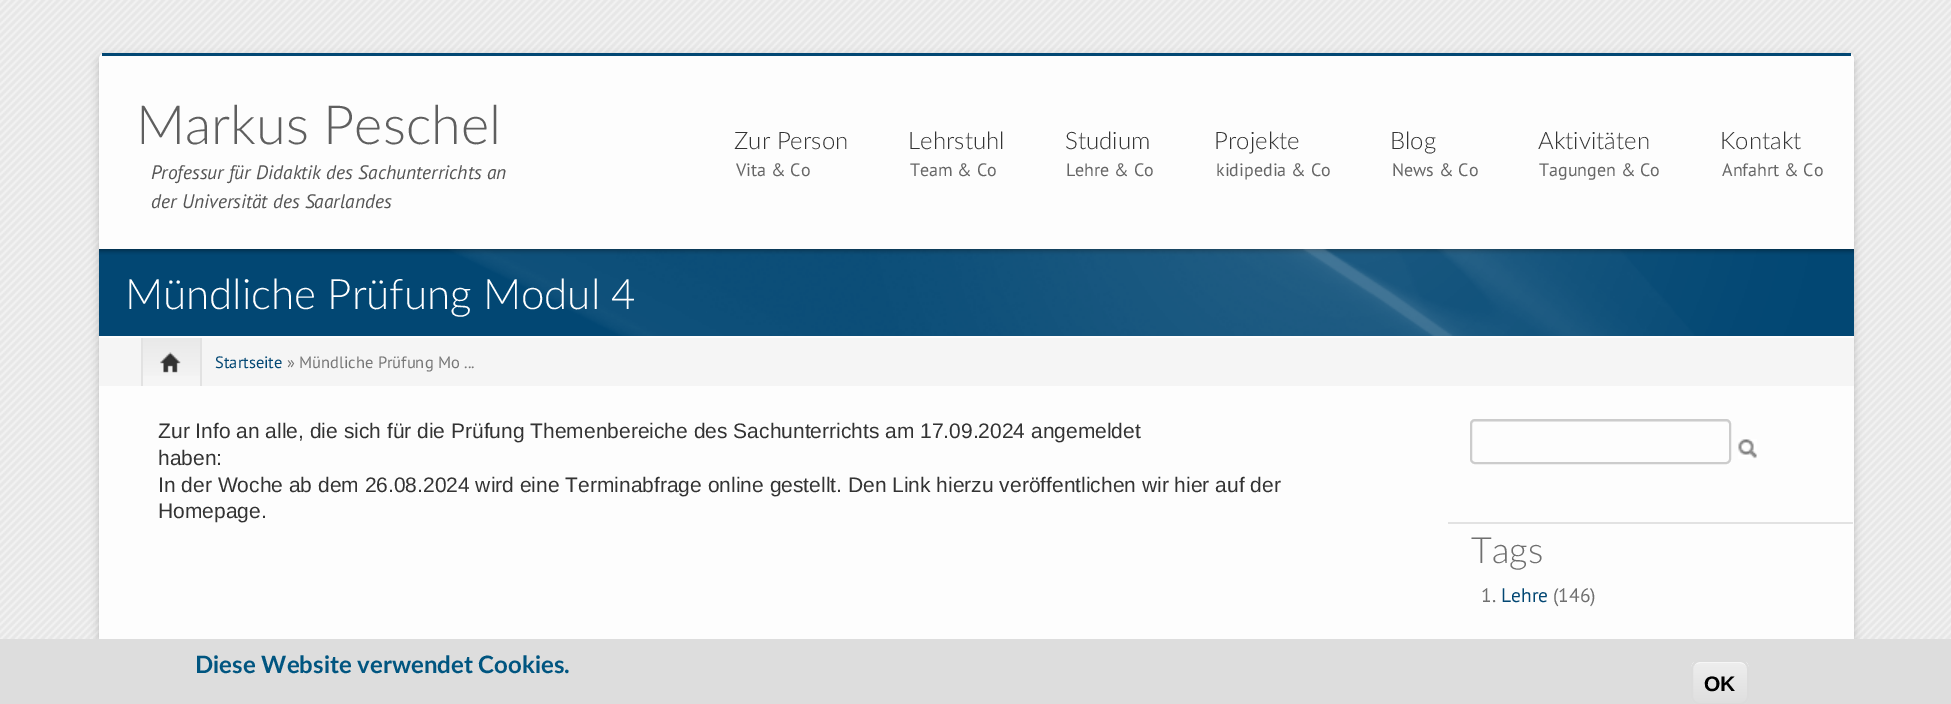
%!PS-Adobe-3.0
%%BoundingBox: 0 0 1951 704
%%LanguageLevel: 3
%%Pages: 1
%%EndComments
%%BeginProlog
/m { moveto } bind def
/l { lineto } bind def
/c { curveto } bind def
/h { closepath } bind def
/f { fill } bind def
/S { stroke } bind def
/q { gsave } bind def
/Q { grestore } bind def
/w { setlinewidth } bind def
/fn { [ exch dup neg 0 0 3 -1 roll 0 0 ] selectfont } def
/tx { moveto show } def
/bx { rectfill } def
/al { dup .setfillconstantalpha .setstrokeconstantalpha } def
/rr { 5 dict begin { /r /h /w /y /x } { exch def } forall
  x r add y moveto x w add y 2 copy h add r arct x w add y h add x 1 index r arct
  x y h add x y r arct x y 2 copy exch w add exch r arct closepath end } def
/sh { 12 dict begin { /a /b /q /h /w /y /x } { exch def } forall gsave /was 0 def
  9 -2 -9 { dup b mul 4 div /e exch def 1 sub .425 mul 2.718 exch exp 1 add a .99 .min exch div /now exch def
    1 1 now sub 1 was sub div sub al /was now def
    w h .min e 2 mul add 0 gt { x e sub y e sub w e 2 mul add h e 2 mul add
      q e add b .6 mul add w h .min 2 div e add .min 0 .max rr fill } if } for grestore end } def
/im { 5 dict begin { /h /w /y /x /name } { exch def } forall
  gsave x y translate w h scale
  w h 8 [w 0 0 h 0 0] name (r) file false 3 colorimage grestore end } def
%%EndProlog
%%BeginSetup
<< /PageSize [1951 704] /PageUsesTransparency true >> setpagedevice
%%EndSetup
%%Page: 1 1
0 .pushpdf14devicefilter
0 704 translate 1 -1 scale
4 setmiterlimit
1 setgray
0 0 1951 704 bx
(image0.raw) 0 0 1951 639 im
0.196 setgray
99 56 1755 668 6 4.5 0.25 sh
0.992 setgray
99 53 1755 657 6 rr f
0.008 0.278 0.451 setrgbcolor
102 53 1749 3 bx
/Lato-Light 54 fn
0.373 setgray
(Markus Peschel) 136 144 tx
/PTSans-Italic 19.5 fn
0.333 setgray
(Professur für Didaktik des Sachunterrichts an) 151 179 tx
(der Universität des Saarlandes) 151 208 tx
/Lato-Light 24 fn
0.2 setgray
(Zur Person) 734 149 tx
/PTSans-Regular 18 fn
0.4 setgray
(Vita & Co) 736 176 tx
/Lato-Light 24 fn
0.2 setgray
(Lehrstuhl) 908 149 tx
/PTSans-Regular 18 fn
0.4 setgray
(Team & Co) 910 176 tx
/Lato-Light 24 fn
0.2 setgray
(Studium) 1065 149 tx
/PTSans-Regular 18 fn
0.4 setgray
(Lehre & Co) 1066 176 tx
/Lato-Light 24 fn
0.2 setgray
(Projekte) 1214 149 tx
/PTSans-Regular 18 fn
0.4 setgray
(kidipedia & Co) 1216 176 tx
/Lato-Light 24 fn
0.2 setgray
(Blog) 1390 149 tx
/PTSans-Regular 18 fn
0.4 setgray
(News & Co) 1392 176 tx
/Lato-Light 24 fn
0.2 setgray
(Aktivitäten) 1538 149 tx
/PTSans-Regular 18 fn
0.4 setgray
(Tagungen & Co) 1539 176 tx
/Lato-Light 24 fn
0.2 setgray
(Kontakt) 1720 149 tx
/PTSans-Regular 18 fn
0.4 setgray
(Anfahrt & Co) 1722 176 tx
0.008 0.278 0.451 setrgbcolor
99 249 1755 87 bx
(image1.raw) 99 249 1755 87 im
/Lato-Light 42 fn
1 setgray
(Mündliche Prüfung Modul 4) 125 309 tx
0.961 setgray
99 338 1755 48 bx
q 143 338 m 200 338 l 200 376 l 143 376 l h clip newpath
<< /ShadingType 2 /ColorSpace /DeviceRGB /Coords [171 338 171 386] /Extend [true true] /Function << /FunctionType 2 /Domain [0 1] /C0 [0.914 0.914 0.914] /C1 [0.961 0.961 0.961] /N 1 >> >> shfill Q
0.886 setgray
200 338 2 48 bx
141 338 2 48 bx
(image2.raw) 160 352 21 21 im
/PTSans-Regular 16.5 fn
0.008 0.278 0.451 setrgbcolor
(Startseite) 215 368 tx
0.467 setgray
(» Mündliche Prüfung Mo ...) 287 368 tx
/LiberationSans-Regular 21 fn
0.2 setgray
(Zur Info an alle, die sich für die Prüfung Themenbereiche des Sachunterrichts am 17.09.2024 angemeldet) 158 438 tx
(haben:) 158 465 tx
(In der Woche ab dem 26.08.2024 wird eine Terminabfrage online gestellt. Den Link hierzu veröffentlichen wir hier auf der) 158 492 tx
(Homepage.) 158 518 tx
0.886 setgray
1448 522 405 2 bx
0.925 setgray
1474 422 m 1726 422 l 1728 422 1730 423 1730 424 c 1730 423 l 1730 421 1729 420 1727 420 c 1475 420 l 1473 420 1472 421 1472 423 c 1472 424 l 1472 423 1473 422 1474 422 c h f
0.8 setgray
2 w
1471 420 259 43 4 rr S
(image3.raw) 1738 439 19 20 im
/Lato-Light 36 fn
0.435 setgray
(Tags) 1471 563 tx
/PTSans-Regular 19.5 fn
(1.) 1481 602 tx
0.008 0.278 0.451 setrgbcolor
(Lehre) 1501 602 tx
0.435 setgray
(\(146\)) 1553 602 tx
0.867 setgray
0 639 1951 65 bx
/Lato-Bold 24 fn
0 0.333 0.502 setrgbcolor
(Diese Website verwendet Cookies.) 195 673 tx
q
1691 660 58 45 9 rr clip newpath
q 1691 662 m 1749 662 l 1749 704 l 1691 704 l h clip newpath
<< /ShadingType 2 /ColorSpace /DeviceRGB /Coords [1720 662 1720 704] /Extend [true true] /Function << /FunctionType 3 /Domain [0 1] /Functions [<< /FunctionType 2 /Domain [0 1] /C0 [0.929 0.929 0.929] /C1 [0.929 0.929 0.929] /N 1 >> << /FunctionType 2 /Domain [0 1] /C0 [0.929 0.929 0.929] /C1 [0.875 0.875 0.875] /N 1 >>] /Bounds [0.05] /Encode [0 1 0 1] >> >> shfill Q
Q
1 setgray
1700 663 m 1740 663 l 1744 663 1748 666 1748 670 c 1748 666 1744 662 1740 662 c 1700 662 l 1696 662 1692 666 1692 670 c 1692 666 1695 663 1700 663 c h f
0.863 setgray
1692 661 56 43 8 rr S
/LiberationSans-Bold 21 fn
0 setgray
(OK) 1704 691 tx
.poppdf14devicefilter showpage
%%EOF
